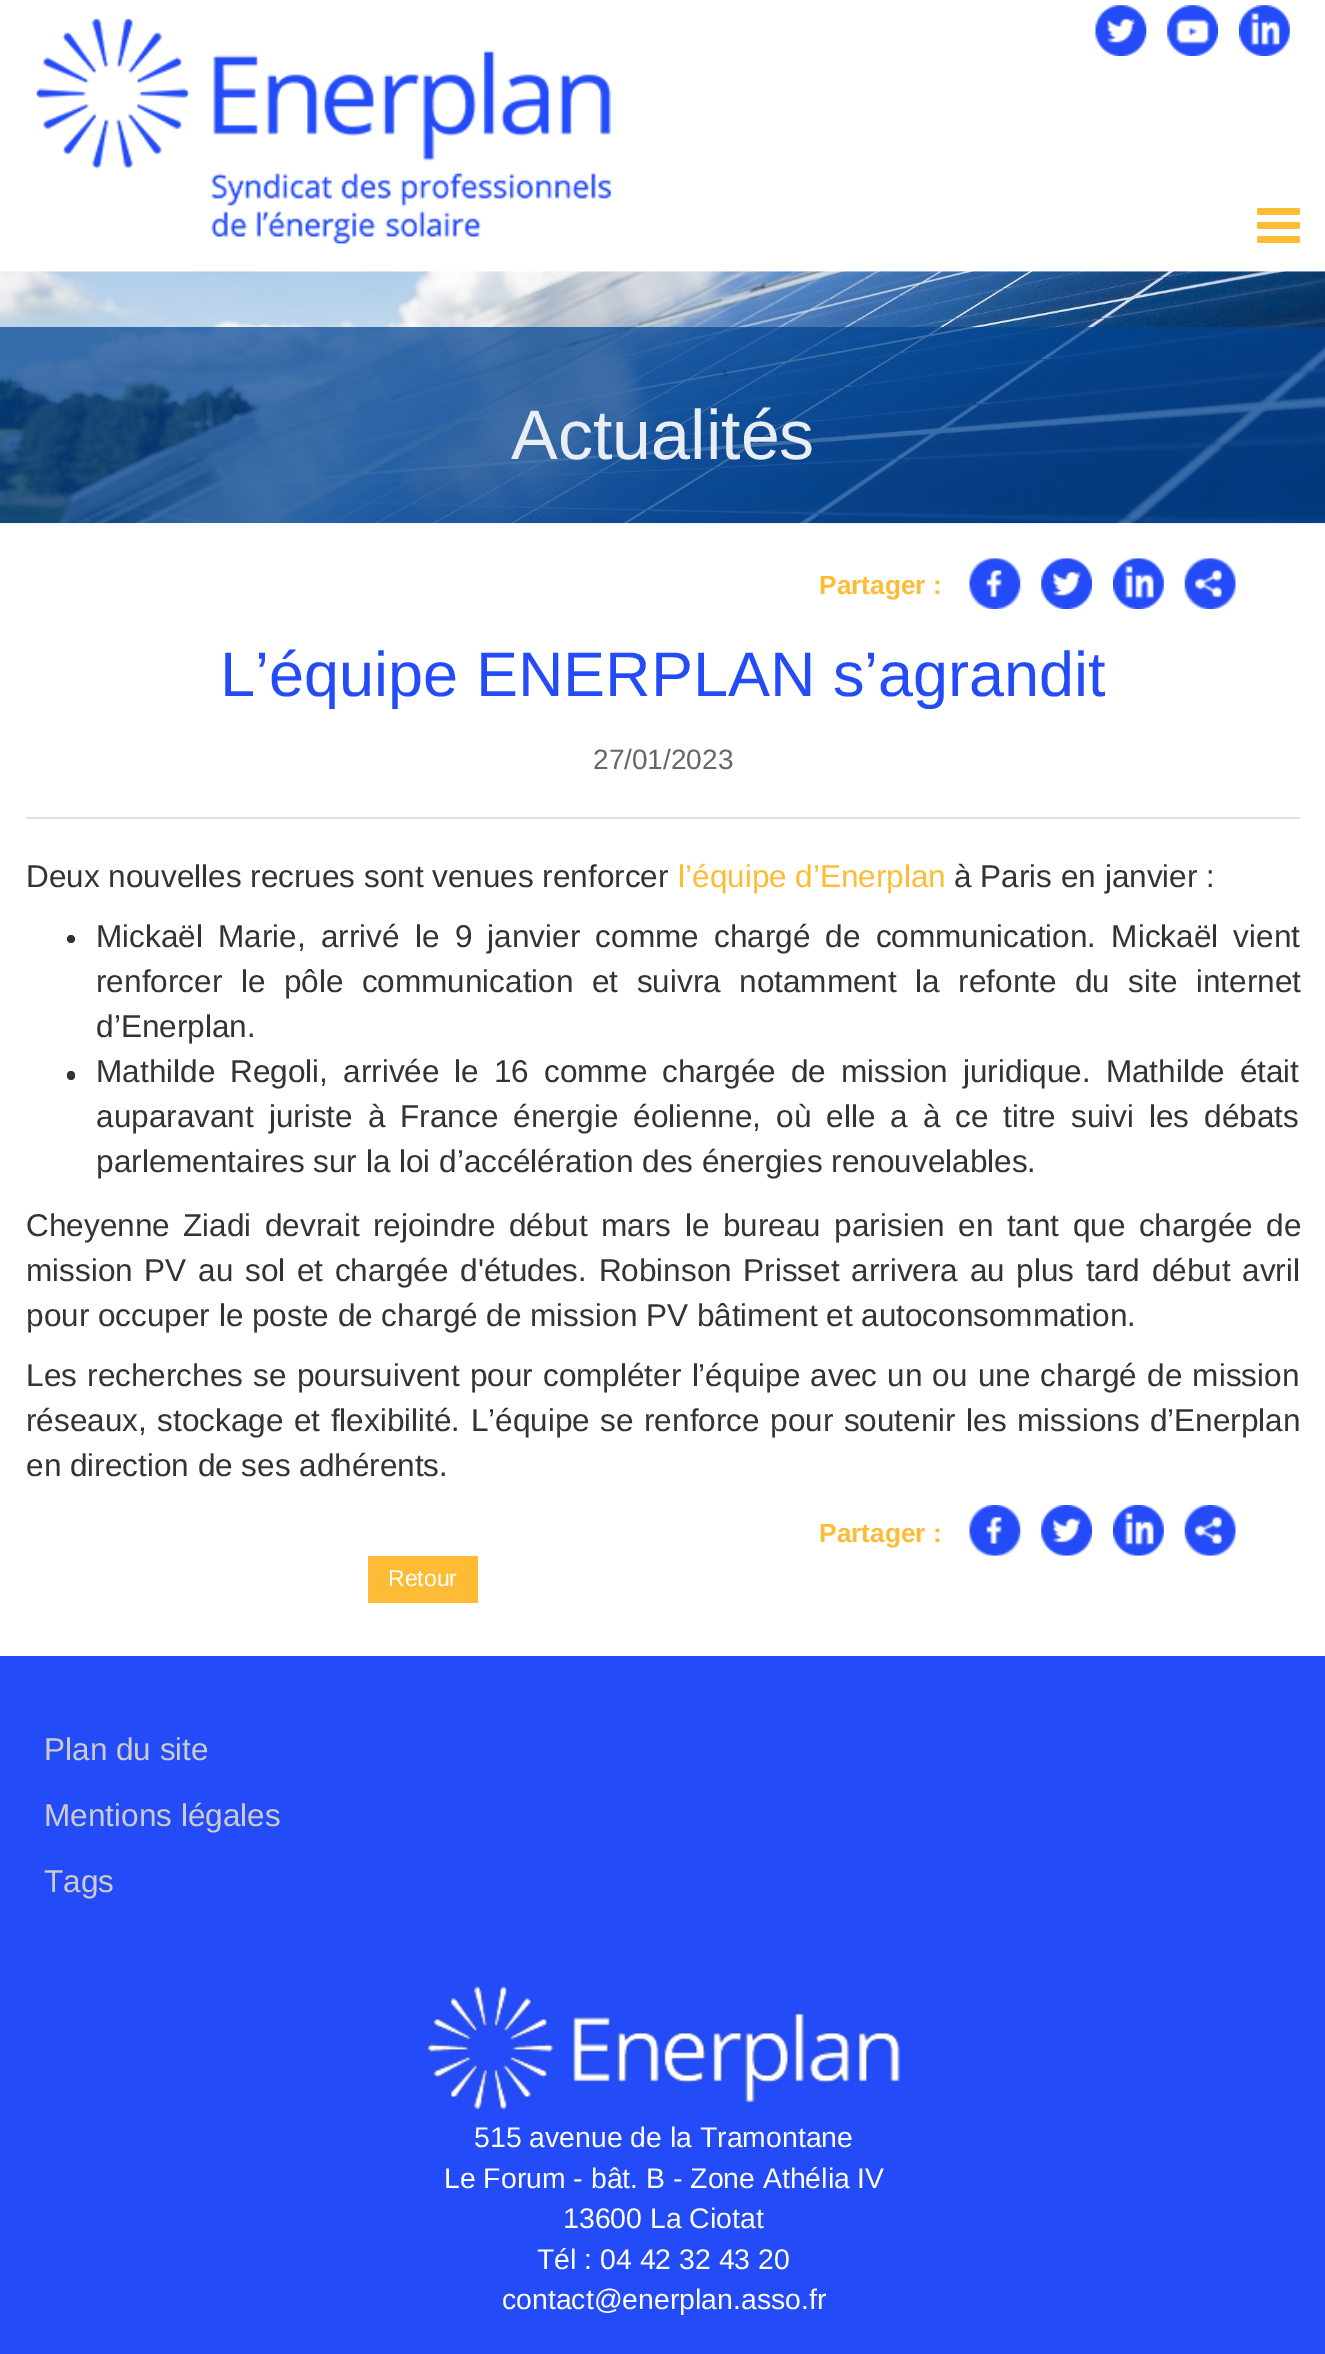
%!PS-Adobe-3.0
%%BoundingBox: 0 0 1325 2354
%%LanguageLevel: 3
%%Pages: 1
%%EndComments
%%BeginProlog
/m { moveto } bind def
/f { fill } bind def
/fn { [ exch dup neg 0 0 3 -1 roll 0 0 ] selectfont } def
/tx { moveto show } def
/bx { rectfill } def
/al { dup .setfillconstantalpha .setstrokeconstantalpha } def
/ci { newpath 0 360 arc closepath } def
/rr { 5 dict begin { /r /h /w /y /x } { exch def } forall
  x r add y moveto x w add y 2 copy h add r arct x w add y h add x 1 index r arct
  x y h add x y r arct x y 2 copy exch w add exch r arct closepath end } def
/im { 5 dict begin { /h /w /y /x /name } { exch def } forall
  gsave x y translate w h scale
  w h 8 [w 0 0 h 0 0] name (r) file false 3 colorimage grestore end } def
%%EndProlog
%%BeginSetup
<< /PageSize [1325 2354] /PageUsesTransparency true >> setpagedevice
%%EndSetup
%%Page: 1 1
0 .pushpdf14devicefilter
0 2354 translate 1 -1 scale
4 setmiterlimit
1 setgray
0 0 1325 2354 bx
(image0.raw) 36 19 575 225 im
(image1.raw) 1095 5 52 51 im
(image2.raw) 1167 5 51 51 im
(image3.raw) 1239 5 51 51 im
0.996 0.737 0.212 setrgbcolor
1257 208 43 7 2 rr f
1257 222 43 7 2 rr f
1257 236 43 7 2 rr f
(image4.raw) 0 271 1325 253 im
0.72 al
0.004 0.267 0.576 setrgbcolor
0 327 1325 196 bx
/Arimo-Regular 70 fn
1 al
0.914 0.933 0.961 setrgbcolor
(Actualités) 511 459 tx
/Arimo-Bold 26.25 fn
0.996 0.737 0.212 setrgbcolor
(Partager :) 819 594 tx
(image5.raw) 969 558 52 51 im
(image6.raw) 1041 558 51 51 im
(image7.raw) 1113 558 51 51 im
(image8.raw) 1184 558 52 51 im
/Arimo-Regular 63 fn
0.137 0.294 0.969 setrgbcolor
(L’équipe ENERPLAN s’agrandit) 220 696 tx
/Arimo-Regular 28 fn
0.4 setgray
(27/01/2023) 593 769 tx
0.875 setgray
26 817 1274 2 bx
/Arimo-Regular 31.5 fn
0.2 setgray
(Deux nouvelles recrues sont venues renforcer) 26 887 tx
0.996 0.737 0.212 setrgbcolor
(l’équipe d’Enerplan) 678 887 tx
0.2 setgray
(à Paris en janvier :) 954 887 tx
71 939 4 ci f
96 947 m 6.5 0 32 (Mickaël Marie, arrivé le 9 janvier comme chargé de communication. Mickaël vient) widthshow
96 992 m 9.75 0 32 (renforcer le pôle communication et suivra notamment la refonte du site internet) widthshow
(d’Enerplan.) 96 1037 tx
67 1071 8 9 4 rr f
96 1082 m 6.25 0 32 (Mathilde Regoli, arrivée le 16 comme chargée de mission juridique. Mathilde était) widthshow
96 1127 m 6.25 0 32 (auparavant juriste à France énergie éolienne, où elle a à ce titre suivi les débats) widthshow
(parlementaires sur la loi d’accélération des énergies renouvelables.) 96 1172 tx
26 1236 m 4.75 0 32 (Cheyenne Ziadi devrait rejoindre début mars le bureau parisien en tant que chargée de) widthshow
26 1281 m 2.9 0 32 (mission PV au sol et chargée d'études. Robinson Prisset arrivera au plus tard début avril) widthshow
(pour occuper le poste de chargé de mission PV bâtiment et autoconsommation.) 26 1326 tx
26 1386 m 1.5 0 32 (Les recherches se poursuivent pour compléter l’équipe avec un ou une chargé de mission) widthshow
26 1431 m 1.75 0 32 (réseaux, stockage et flexibilité. L’équipe se renforce pour soutenir les missions d’Enerplan) widthshow
(en direction de ses adhérents.) 26 1476 tx
/Arimo-Bold 26.25 fn
0.996 0.737 0.212 setrgbcolor
(Partager :) 819 1542 tx
(image9.raw) 969 1505 52 51 im
(image10.raw) 1041 1505 51 51 im
(image11.raw) 1113 1505 51 51 im
(image12.raw) 1184 1505 52 51 im
368 1556 110 47 bx
/Arimo-Regular 23 fn
1 setgray
(Retour) 388 1586 tx
0.137 0.294 0.969 setrgbcolor
0 1656 1325 698 bx
/Arimo-Regular 31.5 fn
0.8 setgray
(Plan du site) 44 1760 tx
(Mentions légales) 44 1826 tx
(Tags) 44 1892 tx
(image13.raw) 427 1986 473 124 im
/Arimo-Regular 28.4 fn
1 setgray
(515 avenue de la Tramontane) 474 2147 tx
(Le Forum - bât. B - Zone Athélia IV) 444 2188 tx
(13600 La Ciotat) 563 2228 tx
(Tél : 04 42 32 43 20) 537 2269 tx
(contact@enerplan.asso.fr) 502 2309 tx
.poppdf14devicefilter showpage
%%EOF
